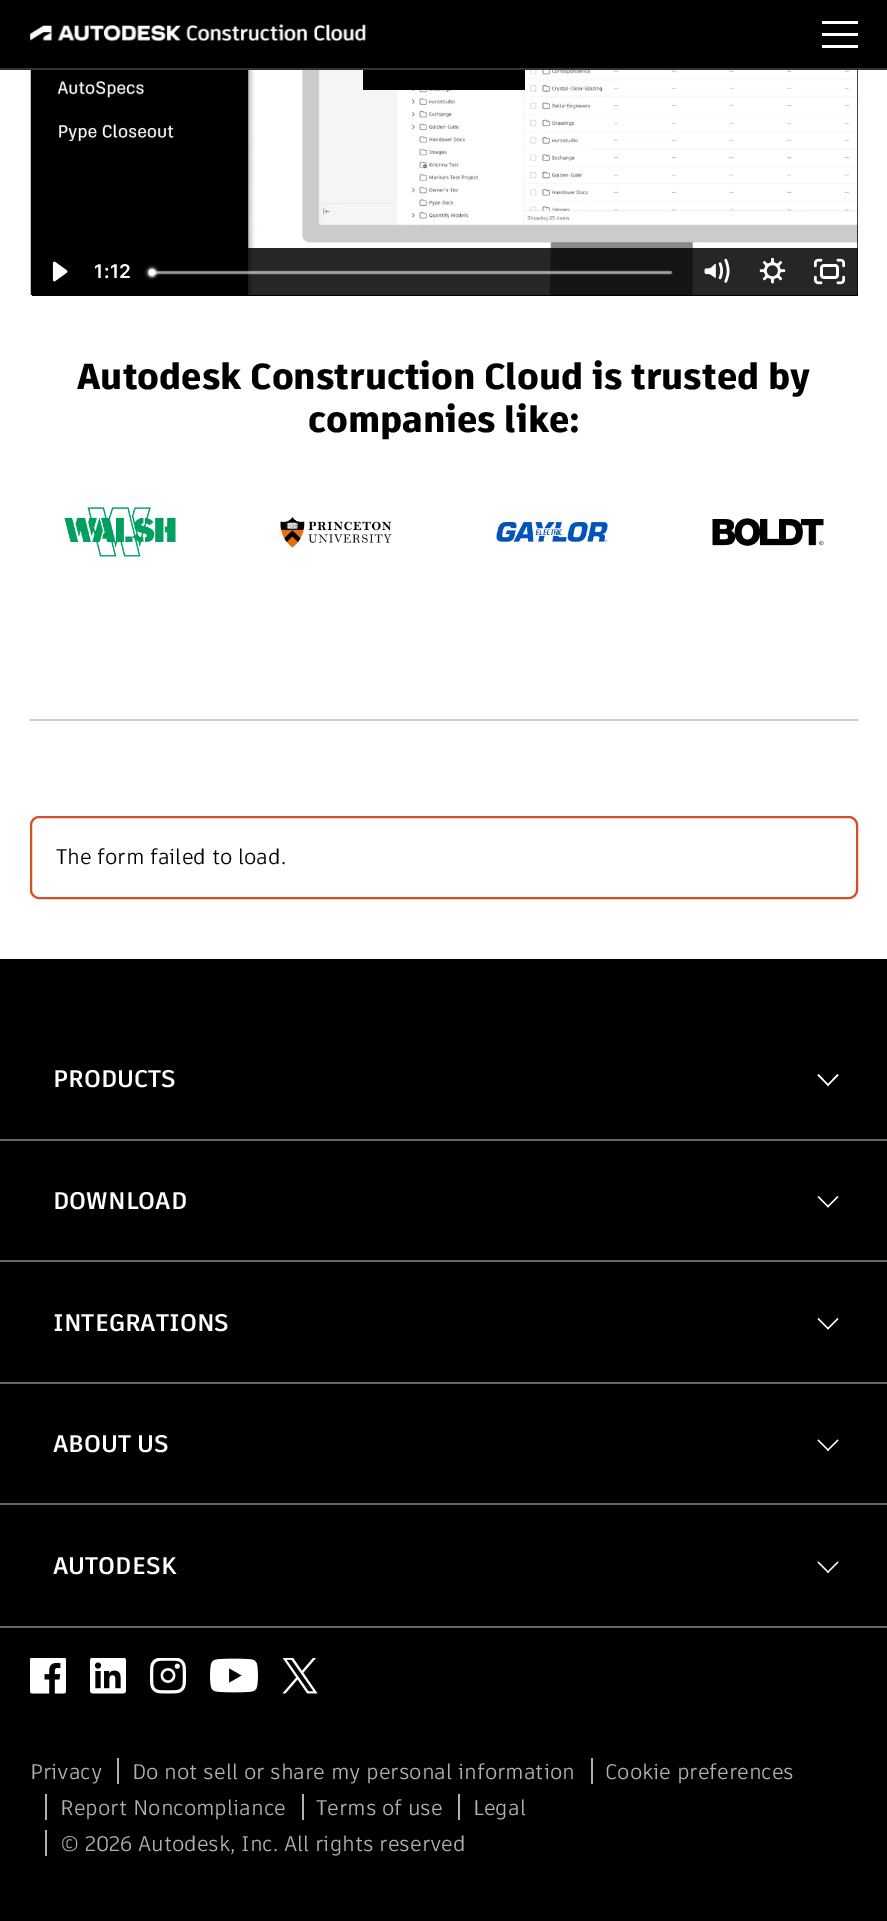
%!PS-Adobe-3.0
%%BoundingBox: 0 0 887 1921
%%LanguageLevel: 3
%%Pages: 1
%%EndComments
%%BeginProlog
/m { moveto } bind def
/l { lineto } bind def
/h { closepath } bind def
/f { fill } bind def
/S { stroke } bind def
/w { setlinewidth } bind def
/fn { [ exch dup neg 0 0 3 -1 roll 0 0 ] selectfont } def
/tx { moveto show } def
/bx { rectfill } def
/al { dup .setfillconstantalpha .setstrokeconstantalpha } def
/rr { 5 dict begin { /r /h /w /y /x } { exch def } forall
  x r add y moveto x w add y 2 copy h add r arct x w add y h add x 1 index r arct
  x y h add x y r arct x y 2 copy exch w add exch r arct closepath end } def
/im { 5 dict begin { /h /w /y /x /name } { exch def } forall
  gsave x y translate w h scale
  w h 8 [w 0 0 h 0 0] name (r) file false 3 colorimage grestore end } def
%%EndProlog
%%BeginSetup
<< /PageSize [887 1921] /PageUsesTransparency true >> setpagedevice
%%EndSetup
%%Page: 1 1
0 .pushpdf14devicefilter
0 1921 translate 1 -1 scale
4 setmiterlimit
1 setgray
0 0 887 1921 bx
0 setgray
0 0 887 68 bx
0.2 setgray
0 68 887 2 bx
(image0.raw) 30 24 336 18 im
1 setgray
822 21 36 3 bx
822 33 36 3 bx
822 45 36 3 bx
0 setgray
32 70 826 226 bx
(image1.raw) 30 70 828 225 im
363 70 162 20 bx
0.85 al
248 248 610 47 bx
1 al
(image2.raw) 52 261 16 21 im
/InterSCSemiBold-SemiBold 19 fn
1 setgray
94 278 m 0.5 0 (1:12) ashow
(image3.raw) 144 265 529 15 im
(image4.raw) 704 258 26 25 im
(image5.raw) 759 257 27 27 im
(image6.raw) 813 258 33 27 im
/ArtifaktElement-ExtraBold 36 fn
0 setgray
(Autodesk Construction Cloud is trusted by) 77 389 tx
(companies like:) 308 432 tx
(image7.raw) 64 507 112 50 im
(image8.raw) 280 517 112 31 im
(image9.raw) 496 522 112 20 im
(image10.raw) 712 518 112 28 im
0.8 setgray
30 719 828 2 bx
0.843 0.306 0.149 setrgbcolor
2 w
31 817 826 81 8 rr S
/ArtifaktElement-Regular 21 fn
0 setgray
(The form failed to load.) 56 864 tx
0 959 887 962 bx
/ArtifaktElement-Bold 24 fn
1 setgray
(PRODUCTS) 53 1087 tx
827 1085 m 837.5 1074 l 838.5 1075.5 l 828 1086 l h f
817.5 1075.5 m 818.5 1074 l 829 1085 l 828 1086 l h f
0.4 setgray
0 1139 887 2 bx
1 setgray
(DOWNLOAD) 53 1209 tx
827 1206.5 m 837.5 1196 l 838.5 1197 l 828 1207.5 l h f
817.5 1197 m 818.5 1196 l 829 1206.5 l 828 1207.5 l h f
0.4 setgray
0 1260 887 2 bx
1 setgray
(INTEGRATIONS) 53 1331 tx
827 1328.5 m 837.5 1318 l 838.5 1319 l 828 1329.5 l h f
817.5 1319 m 818.5 1318 l 829 1328.5 l 828 1329.5 l h f
0.4 setgray
0 1382 887 2 bx
1 setgray
(ABOUT US) 53 1452 tx
827 1450 m 837.5 1439.5 l 838.5 1440.5 l 828 1451 l h f
817.5 1440.5 m 818.5 1439.5 l 829 1450 l 828 1451 l h f
0.4 setgray
0 1503 887 2 bx
1 setgray
(AUTODESK) 53 1574 tx
827 1572 m 837.5 1561.5 l 838.5 1562.5 l 828 1573 l h f
817.5 1562.5 m 818.5 1561.5 l 829 1572 l 828 1573 l h f
0.4 setgray
0 1626 887 2 bx
(image11.raw) 30 1658 36 36 im
(image12.raw) 90 1658 36 36 im
(image13.raw) 150 1658 36 36 im
(image14.raw) 210 1658 48 35 im
(image15.raw) 282 1658 36 36 im
/ArtifaktElement-Regular 21 fn
0.694 setgray
(Privacy) 30 1779 tx
117 1758 2 26 bx
(Do not sell or share my personal information) 132 1779 tx
591 1758 2 26 bx
(Cookie preferences) 605 1779 tx
45 1794 2 26 bx
(Report Noncompliance) 60 1815 tx
302 1794 2 26 bx
(Terms of use) 316 1815 tx
458 1794 2 26 bx
(Legal) 473 1815 tx
45 1830 2 26 bx
(© 2026 Autodesk, Inc. All rights reserved) 60 1851 tx
.poppdf14devicefilter showpage
%%EOF
